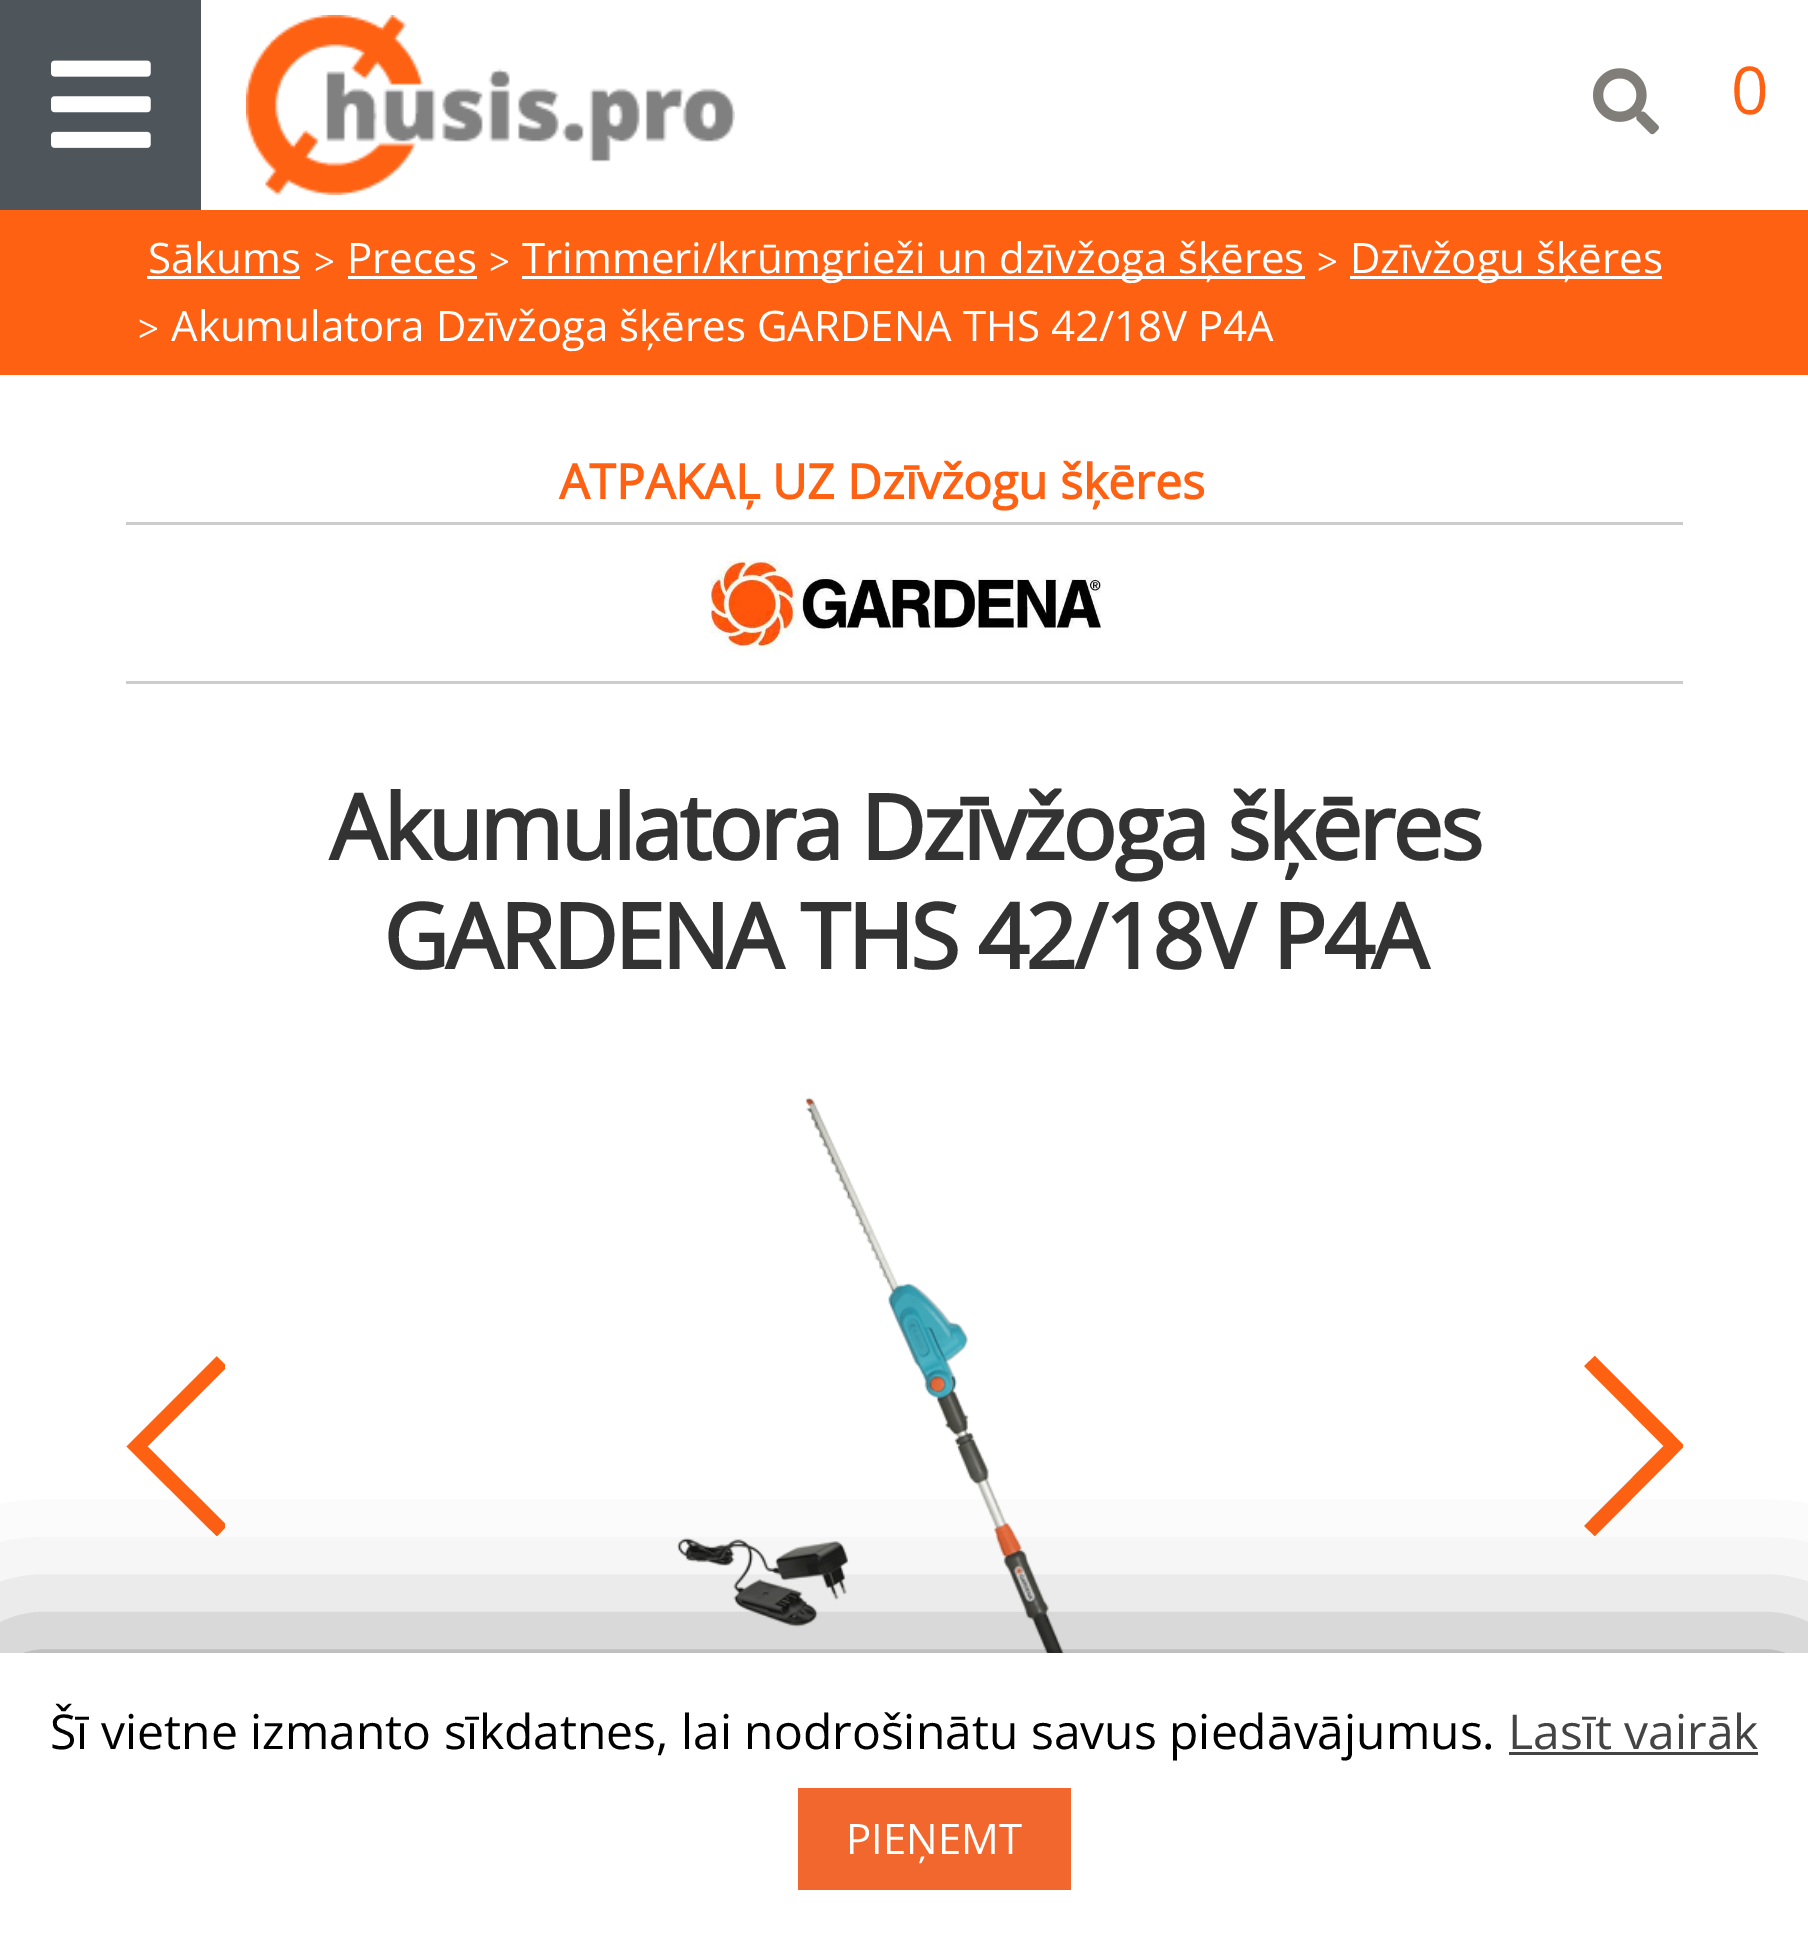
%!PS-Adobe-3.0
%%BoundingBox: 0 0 1808 1942
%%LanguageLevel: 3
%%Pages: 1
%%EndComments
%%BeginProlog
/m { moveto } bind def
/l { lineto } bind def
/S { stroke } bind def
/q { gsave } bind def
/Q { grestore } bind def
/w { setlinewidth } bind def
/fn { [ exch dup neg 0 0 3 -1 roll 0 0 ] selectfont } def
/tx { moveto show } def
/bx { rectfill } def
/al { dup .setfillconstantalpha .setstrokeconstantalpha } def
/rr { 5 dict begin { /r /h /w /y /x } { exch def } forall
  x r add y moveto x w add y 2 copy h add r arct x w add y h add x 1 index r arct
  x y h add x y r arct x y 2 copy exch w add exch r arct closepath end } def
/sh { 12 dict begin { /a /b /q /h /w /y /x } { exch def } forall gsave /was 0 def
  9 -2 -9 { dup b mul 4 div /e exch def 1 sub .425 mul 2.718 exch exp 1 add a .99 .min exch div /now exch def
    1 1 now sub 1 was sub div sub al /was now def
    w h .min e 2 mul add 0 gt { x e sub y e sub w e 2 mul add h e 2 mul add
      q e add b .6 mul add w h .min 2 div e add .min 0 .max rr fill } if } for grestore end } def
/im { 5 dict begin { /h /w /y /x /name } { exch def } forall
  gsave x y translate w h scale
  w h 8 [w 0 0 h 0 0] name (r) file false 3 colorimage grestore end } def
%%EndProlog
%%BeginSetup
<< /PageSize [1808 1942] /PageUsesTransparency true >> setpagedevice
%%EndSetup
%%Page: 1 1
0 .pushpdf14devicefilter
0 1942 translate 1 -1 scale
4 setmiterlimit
1 setgray
0 0 1808 1942 bx
0.306 0.333 0.357 setrgbcolor
0 0 201 210 bx
(image0.raw) 51 60 100 88 im
(image1.raw) 246 15 489 180 im
(image2.raw) 1593 68 66 67 im
/OpenSans-Regular 66 fn
1 0.38 0.075 setrgbcolor
(0) 1731 114 tx
0 210 1808 165 bx
/OpenSans-Regular 42 fn
1 setgray
(Sākums) 148 273 tx
147 276 153 3 bx
/LiberationSerif-Bold 37 fn
(>) 314 274 tx
/OpenSans-Regular 42 fn
(Preces) 347 273 tx
348 276 129 3 bx
/LiberationSerif-Bold 37 fn
(>) 489 274 tx
522 276 783 3 bx
/OpenSans-Regular 42 fn
(Trimmeri/krūmgrieži un dzīvžoga šķēres) 522 273 tx
/LiberationSerif-Bold 37 fn
(>) 1317 274 tx
1350 276 312 3 bx
/OpenSans-Regular 42 fn
(Dzīvžogu šķēres) 1350 273 tx
/LiberationSerif-Bold 37 fn
(>) 138 341 tx
/OpenSans-Regular 42 fn
(Akumulatora Dzīvžoga šķēres GARDENA THS 42/18V P4A) 171 341 tx
/OpenSans-Bold 48 fn
1 0.38 0.075 setrgbcolor
(ATPAKAĻ UZ Dzīvžogu šķēres) 559 499 tx
0.8 setgray
126 522 1557 3 bx
(image3.raw) 711 555 390 96 im
126 681 1557 3 bx
/OpenSans-Bold 90 fn
0.2 setgray
329 860 m -3 0 (Akumulatora Dzīvžoga šķēres) ashow
383 969 m -3 0 (GARDENA THS 42/18V P4A) ashow
(image4.raw) 677 1097 468 556 im
q
126 1356 99 180 rectclip
1 0.38 0.075 setrgbcolor
14.8 w
222 1361.5 m 137 1446.5 l 222 1531 l S
Q
q
1584 1356 99 180 rectclip
1 0.38 0.075 setrgbcolor
14.8 w
1589.5 1531 m 1674 1446 l 1589.5 1361 l S
Q
0 setgray
0 1668 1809 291 0 75 0.5 sh
1 setgray
0 1653 1808 289 bx
/OpenSans-Regular 48 fn
0 setgray
(Šī vietne izmanto sīkdatnes, lai nodrošinātu savus piedāvājumus.) 50 1749 tx
0.267 setgray
(Lasīt vairāk) 1508 1749 tx
1509 1752 249 3 bx
0.949 0.404 0.18 setrgbcolor
798 1788 273 102 bx
/OpenSans-Regular 42 fn
1 setgray
(PIEŅEMT) 846 1854 tx
.poppdf14devicefilter showpage
%%EOF
